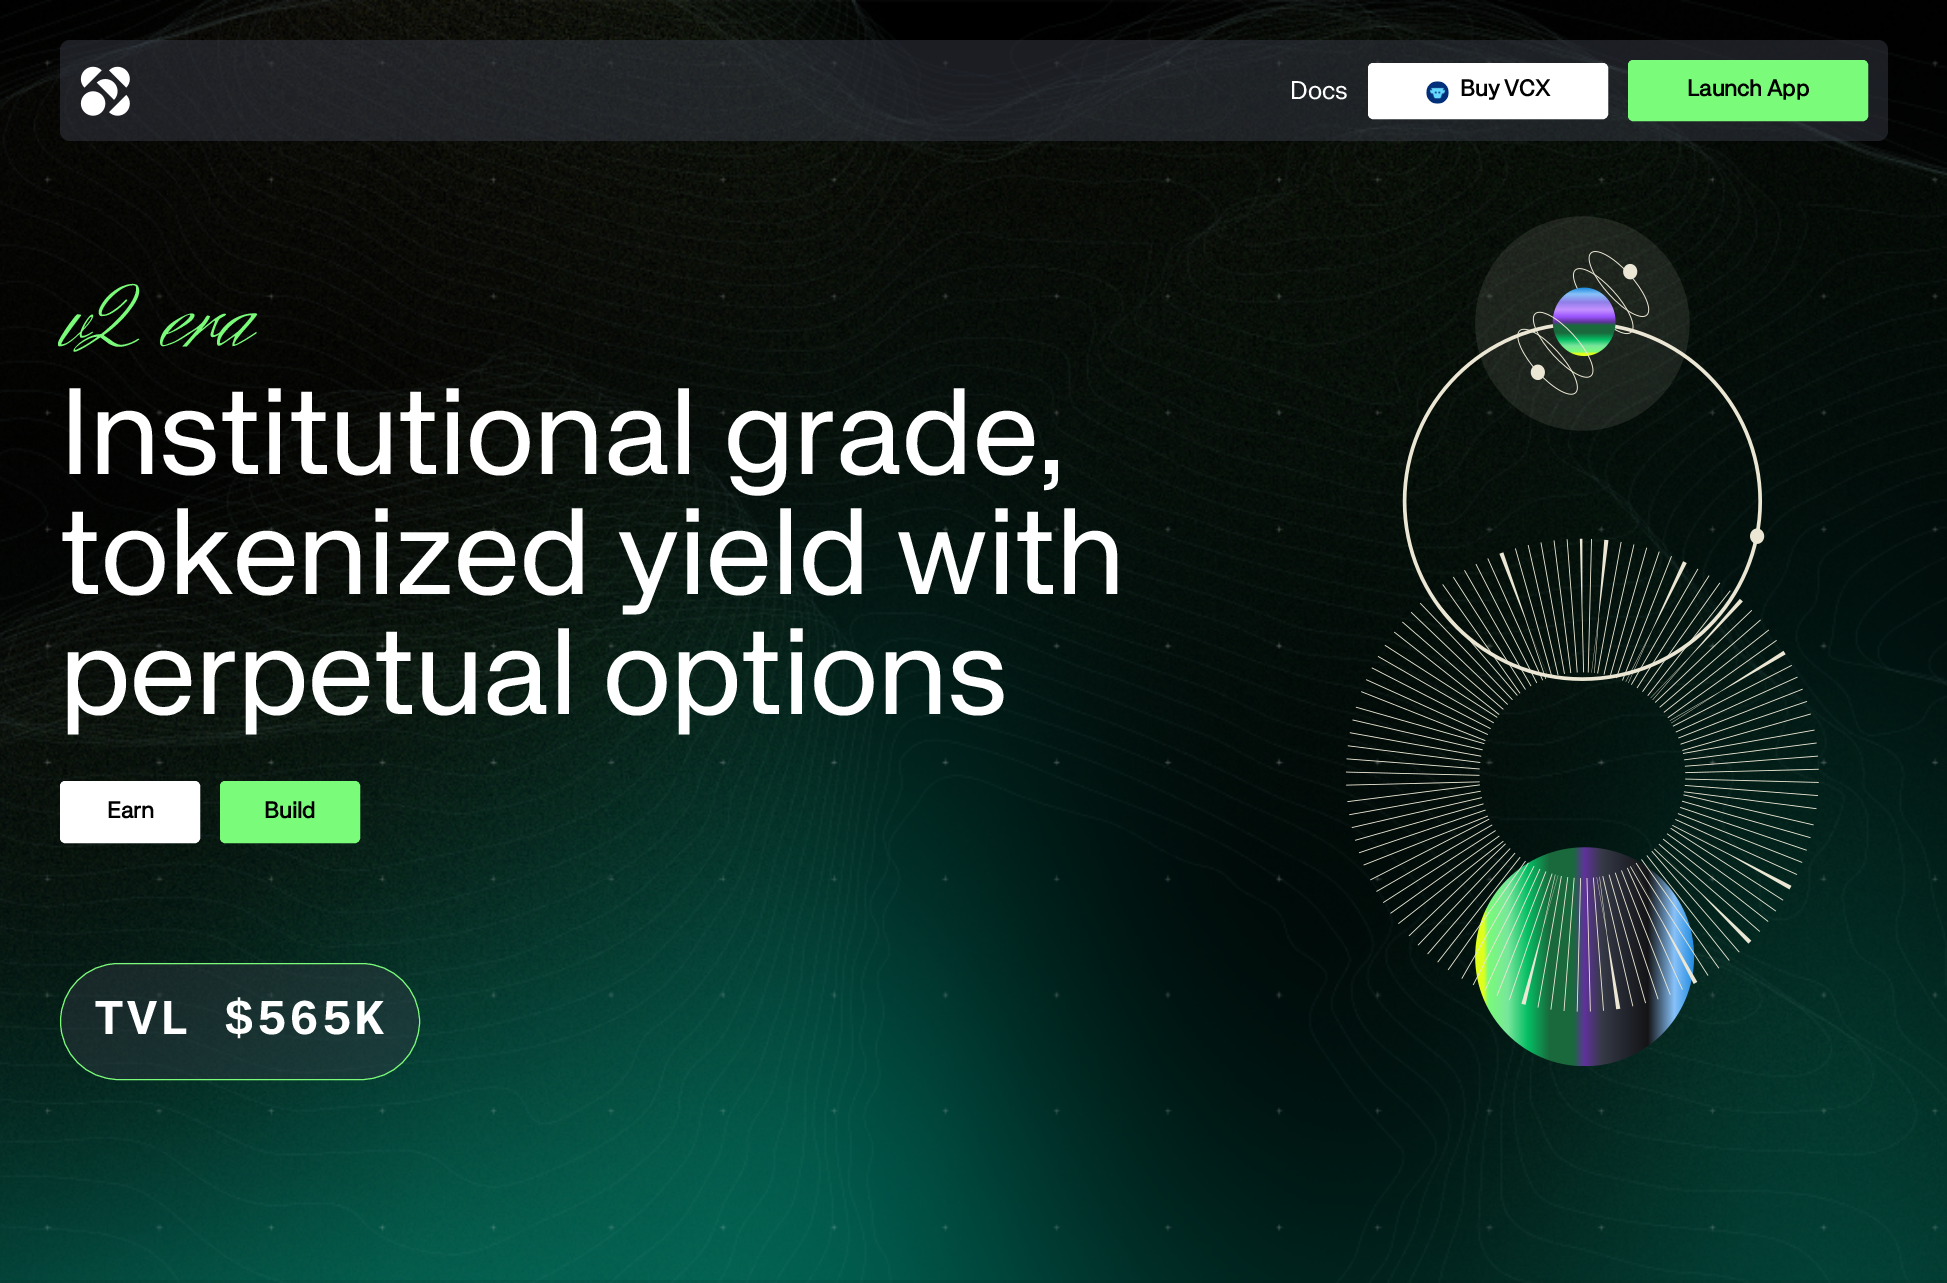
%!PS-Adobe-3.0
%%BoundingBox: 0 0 1947 1283
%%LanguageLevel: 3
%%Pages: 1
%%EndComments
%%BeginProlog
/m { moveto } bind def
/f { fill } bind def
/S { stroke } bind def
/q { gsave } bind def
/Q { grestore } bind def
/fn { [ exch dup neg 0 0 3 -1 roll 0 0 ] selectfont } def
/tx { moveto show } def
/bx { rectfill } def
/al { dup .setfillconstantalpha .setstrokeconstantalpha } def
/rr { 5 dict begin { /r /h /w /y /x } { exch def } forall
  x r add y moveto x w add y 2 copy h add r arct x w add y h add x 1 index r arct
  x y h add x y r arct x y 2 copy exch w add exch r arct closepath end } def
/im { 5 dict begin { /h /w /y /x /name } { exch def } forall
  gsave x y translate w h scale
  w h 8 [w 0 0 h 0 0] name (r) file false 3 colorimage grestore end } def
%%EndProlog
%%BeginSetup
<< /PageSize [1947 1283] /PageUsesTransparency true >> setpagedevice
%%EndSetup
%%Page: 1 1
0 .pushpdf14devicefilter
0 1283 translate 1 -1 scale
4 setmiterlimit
1 setgray
0 0 1947 1283 bx
(image0.raw) 0 0 1947 1283 im
0.5 al
0.208 0.224 0.271 setrgbcolor
60 40 1828 101 10 rr f
1 al
(image1.raw) 80 66 50 50 im
/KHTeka-Regular 25 fn
1 setgray
(Docs) 1290 99 tx
1368.5 63.5 239 55 4.5 rr q f Q
S
(image2.raw) 1426 81 23 23 im
/KHTeka-Bold 22.5 fn
0 setgray
(Buy VCX) 1460 96 tx
0.478 0.984 0.475 setrgbcolor
1628.5 60.5 239 60 4.5 rr q f Q
S
0 setgray
(Launch App) 1687 96 tx
/HerrVonMuellerhoff-Regular 120 fn
0.478 0.984 0.475 setrgbcolor
(v2 era) 60 346 tx
/KHTeka-Regular 120 fn
1 setgray
(Institutional grade,) 60 474 tx
(tokenized yield with) 60 594 tx
(perpetual options) 60 714 tx
60.5 781.5 139 61 4.5 rr q f Q
S
/KHTeka-Bold 22.5 fn
0 setgray
(Earn) 107 818 tx
0.478 0.984 0.475 setrgbcolor
220.5 781.5 139 61 4.5 rr q f Q
S
0 setgray
(Build) 264 818 tx
0.4 al
0.208 0.224 0.271 setrgbcolor
60.5 963.5 359 116 58 rr f
1 al
0.478 0.984 0.475 setrgbcolor
60.5 963.5 359 116 58 rr S
/LiberationMono-Bold 50 fn
1 setgray
94 1034 m 2.5 0 (TVL $565K) ashow
(image3.raw) 1345 216 474 850 im
0.1 al
0 setgray
0 1280 1947 3 bx
.poppdf14devicefilter showpage
%%EOF
